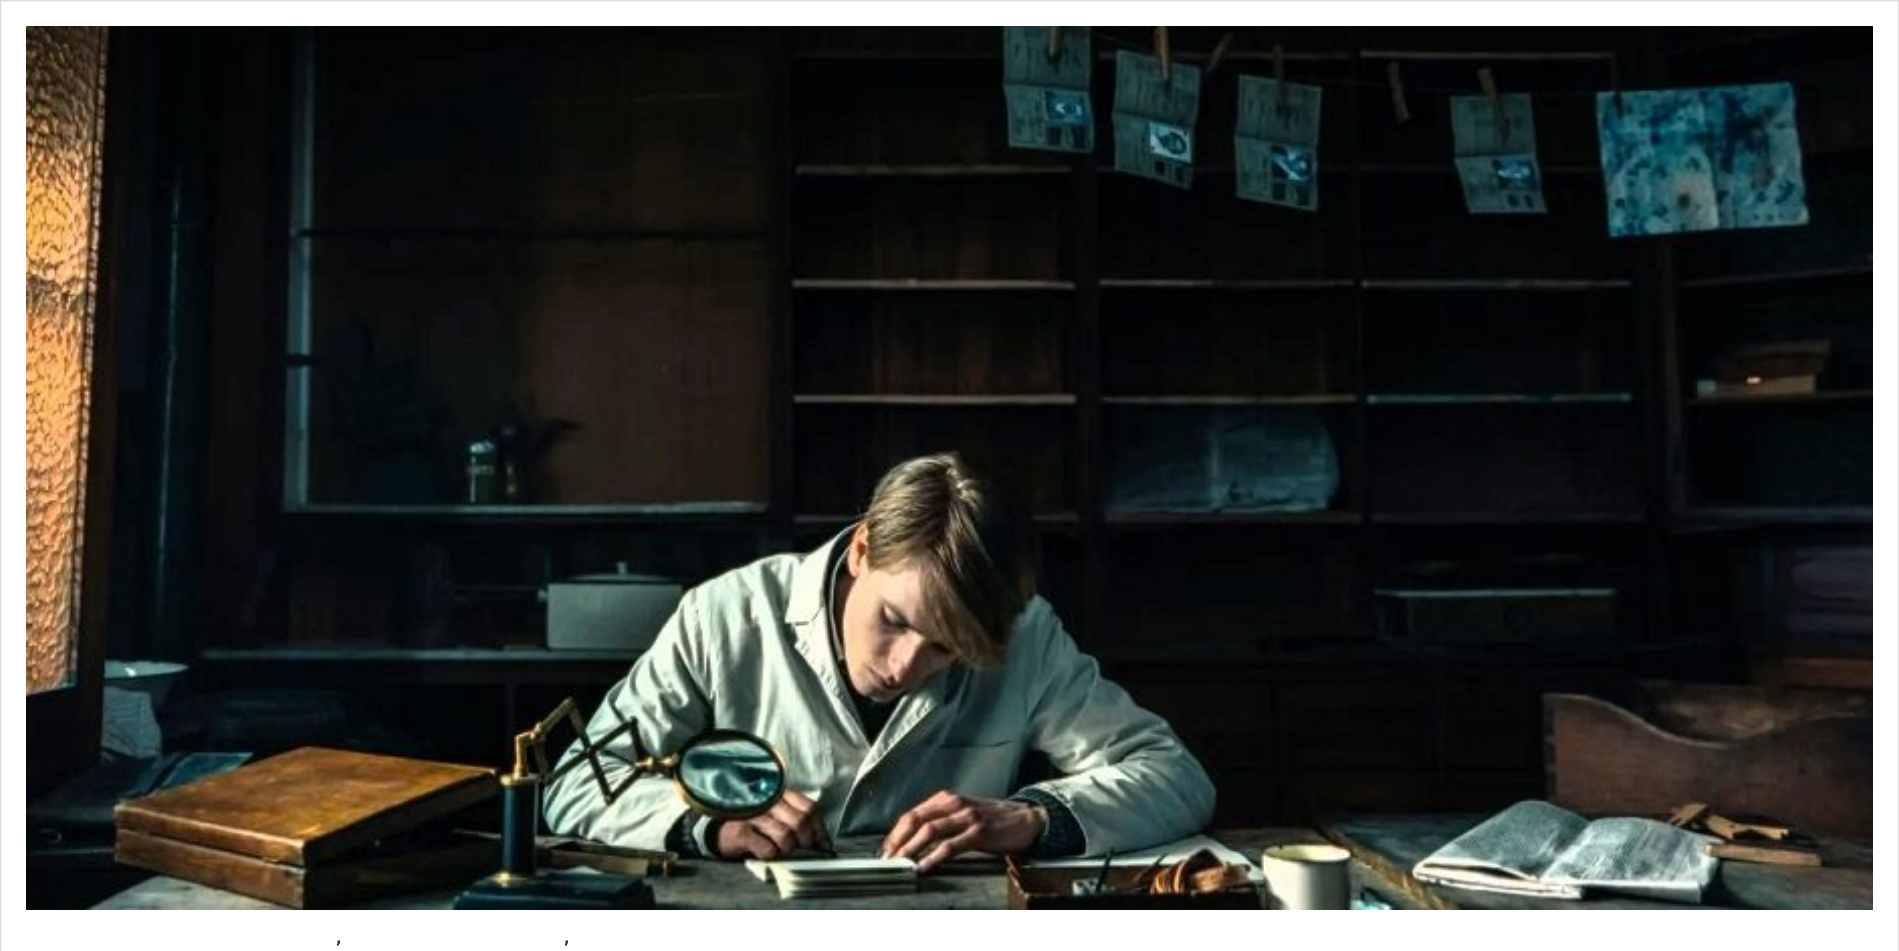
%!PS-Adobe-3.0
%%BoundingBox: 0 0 1899 951
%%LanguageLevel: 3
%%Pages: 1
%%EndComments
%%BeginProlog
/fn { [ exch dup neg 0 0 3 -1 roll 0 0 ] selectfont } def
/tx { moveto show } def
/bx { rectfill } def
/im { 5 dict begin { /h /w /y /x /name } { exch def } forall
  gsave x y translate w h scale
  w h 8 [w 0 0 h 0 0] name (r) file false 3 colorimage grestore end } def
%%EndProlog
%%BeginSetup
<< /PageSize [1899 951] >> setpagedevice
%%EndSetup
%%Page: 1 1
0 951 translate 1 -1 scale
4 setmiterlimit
1 setgray
0 0 1899 951 bx
0.863 0.863 0.871 setrgbcolor
0.5 0.5 1898 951 rectstroke
(image0.raw) 26 26 1847 884 im
/Roboto-SemiBold 22 fn
0.173 0.2 0.22 setrgbcolor
(’) 336 957 tx
(’) 564 957 tx
showpage
%%EOF
